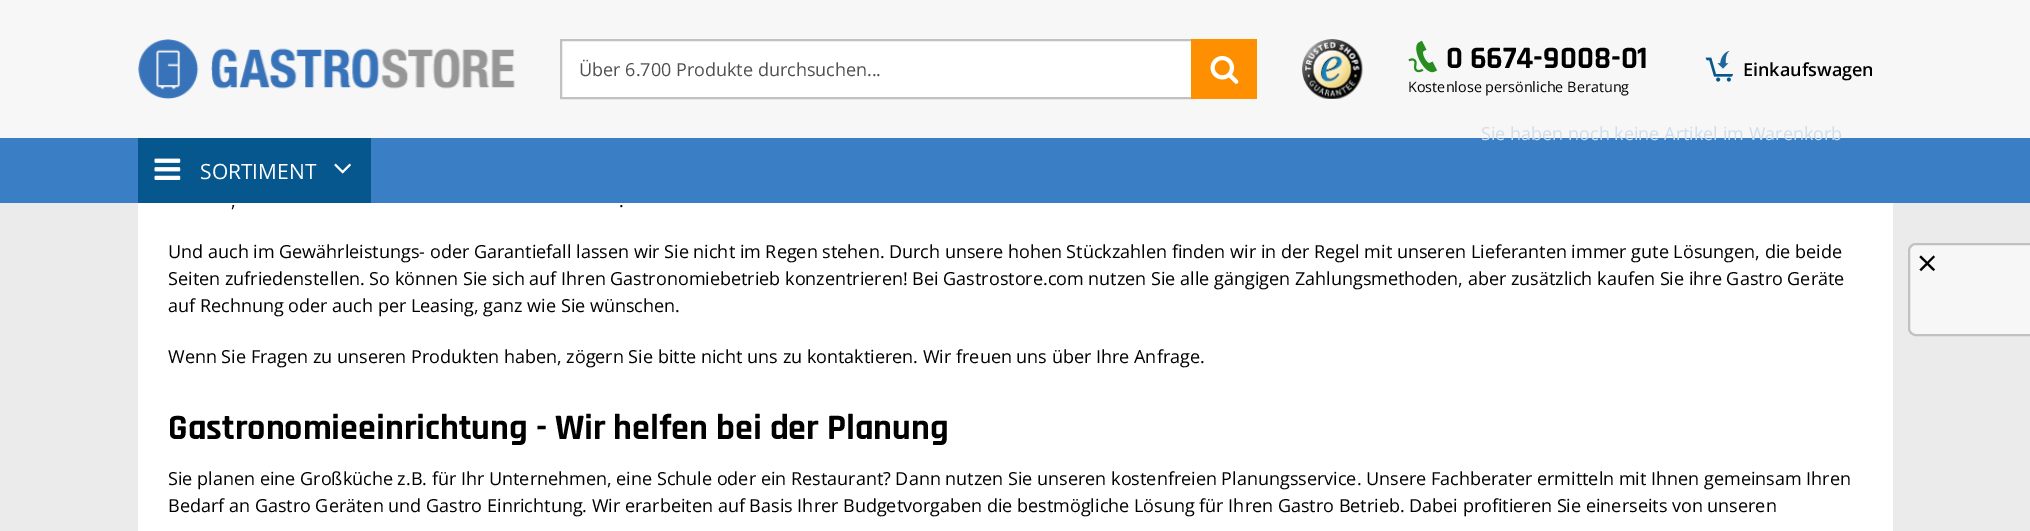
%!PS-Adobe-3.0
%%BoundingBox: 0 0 2030 531
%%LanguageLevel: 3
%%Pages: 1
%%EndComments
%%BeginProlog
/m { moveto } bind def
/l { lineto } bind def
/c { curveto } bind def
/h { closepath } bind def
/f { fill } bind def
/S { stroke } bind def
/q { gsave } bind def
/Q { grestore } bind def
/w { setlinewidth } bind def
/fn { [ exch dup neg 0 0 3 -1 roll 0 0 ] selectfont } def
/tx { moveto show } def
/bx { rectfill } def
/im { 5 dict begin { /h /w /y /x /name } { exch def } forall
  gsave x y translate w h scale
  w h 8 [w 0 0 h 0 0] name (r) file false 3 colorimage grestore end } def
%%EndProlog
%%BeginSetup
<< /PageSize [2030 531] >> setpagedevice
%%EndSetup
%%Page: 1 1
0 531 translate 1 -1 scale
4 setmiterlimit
0.922 setgray
0 0 2030 531 bx
0.969 setgray
0 0 2030 138 bx
(image0.raw) 138 39 377 60 im
1 setgray
561 40 m 1192 40 l 1192 98 l 561 98 l h q f Q
0.757 setgray
2 w
S
/OpenSans-Regular 18 fn
0.314 setgray
(Über 6.700 Produkte durchsuchen...) 579 76 tx
0.992 0.561 0 setrgbcolor
1191 39 66 60 bx
(image1.raw) 1210 55 29 29 im
(image2.raw) 1302 39 61 60 im
(image3.raw) 1408 40 30 33 im
/Rajdhani-Bold 31.5 fn
0 setgray
(0 6674-9008-01) 1446 68 tx
/OpenSans-Regular 14.4 fn
(Kostenlose persönliche Beratung) 1408 92 tx
(image5.raw) 1705 57 29 25 im
(image4.raw) 1717 50 13 19 im
/OpenSans-SemiBold 18 fn
(Einkaufswagen) 1743 76 tx
0.227 0.498 0.776 setrgbcolor
0 138 2030 65 bx
/OpenSans-Regular 18 fn
0.812 0.867 0.929 setrgbcolor
(Sie haben noch keine Artikel im Warenkorb) 1481 140 tx
0.027 0.341 0.561 setrgbcolor
138 138 233 65 bx
(image6.raw) 154 158 27 22 im
/OpenSans-Regular 21 fn
1 setgray
(SORTIMENT) 200 179 tx
(image7.raw) 334 163 17 11 im
138 203 1755 328 bx
/OpenSans-Regular 18 fn
0 setgray
(,) 231 207 tx
(.) 619 207 tx
(Und auch im Gewährleistungs- oder Garantiefall lassen wir Sie nicht im Regen stehen. Durch unsere hohen Stückzahlen finden wir in der Regel mit unseren Lieferanten immer gute Lösungen, die beide) 168 258 tx
(Seiten zufriedenstellen. So können Sie sich auf Ihren Gastronomiebetrieb konzentrieren! Bei Gastrostore.com nutzen Sie alle gängigen Zahlungsmethoden, aber zusätzlich kaufen Sie ihre Gastro Geräte) 168 285 tx
(auf Rechnung oder auch per Leasing, ganz wie Sie wünschen.) 168 312 tx
(Wenn Sie Fragen zu unseren Produkten haben, zögern Sie bitte nicht uns zu kontaktieren. Wir freuen uns über Ihre Anfrage.) 168 363 tx
/Rajdhani-Bold 36 fn
(Gastronomieeinrichtung - Wir helfen bei der Planung) 168 439 tx
/OpenSans-Regular 18 fn
(Sie planen eine Großküche z.B. für Ihr Unternehmen, eine Schule oder ein Restaurant? Dann nutzen Sie unseren kostenfreien Planungsservice. Unsere Fachberater ermitteln mit Ihnen gemeinsam Ihren) 168 485 tx
(Bedarf an Gastro Geräten und Gastro Einrichtung. Wir erarbeiten auf Basis Ihrer Budgetvorgaben die bestmögliche Lösung für Ihren Gastro Betrieb. Dabei profitieren Sie einerseits von unseren) 168 512 tx
0.969 setgray
1916 244 m 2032 244 l 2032 335 l 1916 335 l 1912 335 1909 332 1909 328 c 1909 251 l 1909 247 1912 244 1916 244 c h q f Q
0.757 setgray
S
/OpenSans-Regular 36 fn
0 setgray
(×) 1917 276 tx
showpage
%%EOF
